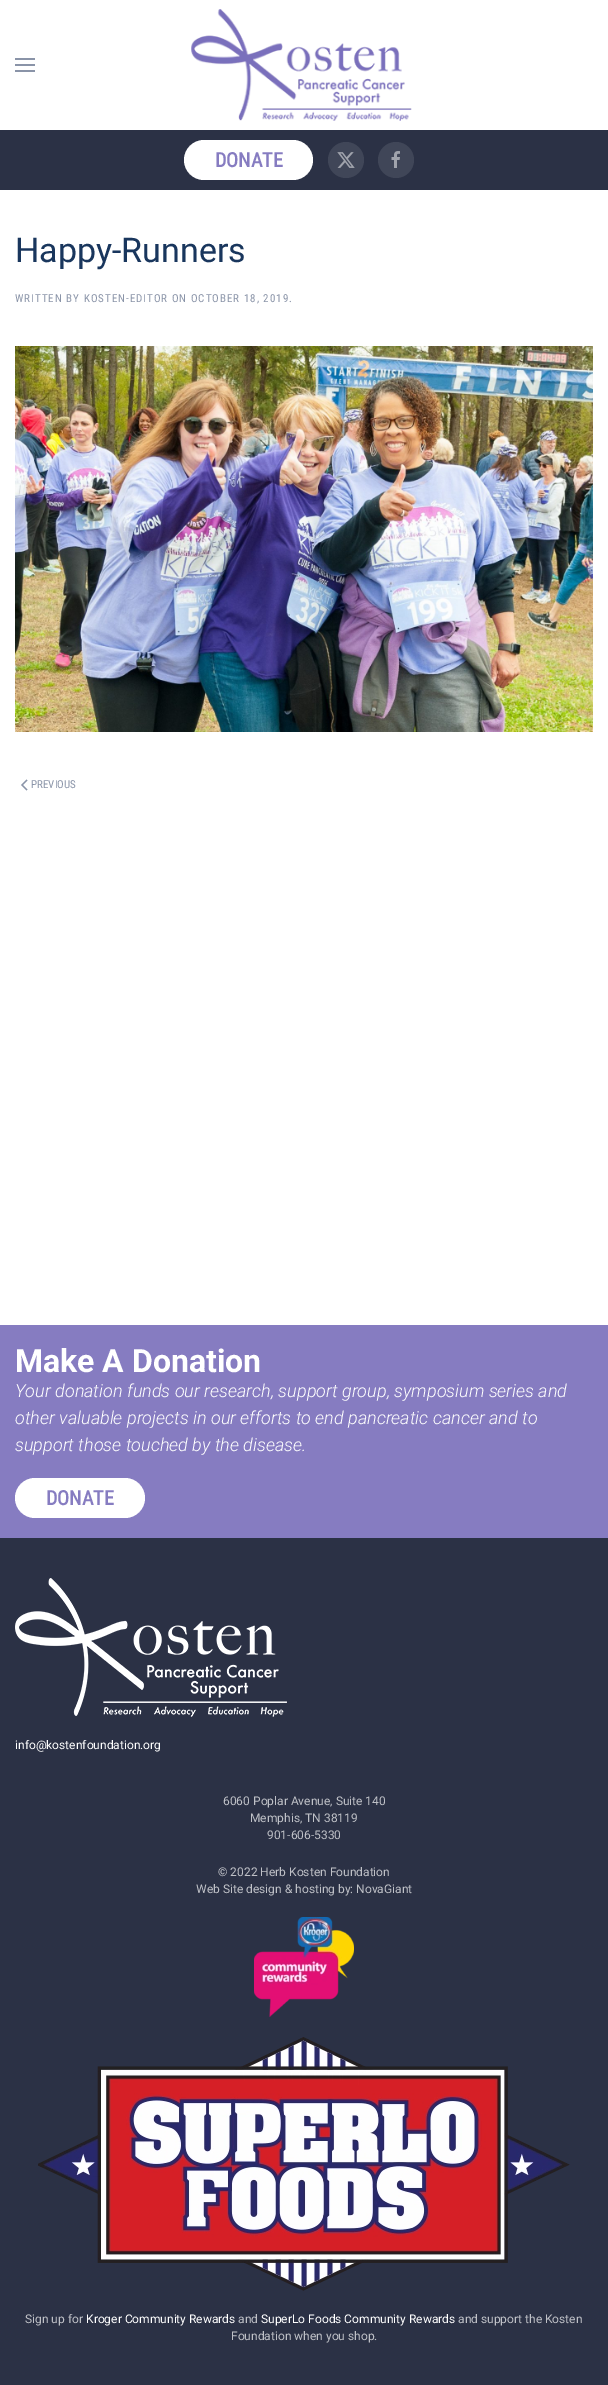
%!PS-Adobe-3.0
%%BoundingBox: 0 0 608 2385
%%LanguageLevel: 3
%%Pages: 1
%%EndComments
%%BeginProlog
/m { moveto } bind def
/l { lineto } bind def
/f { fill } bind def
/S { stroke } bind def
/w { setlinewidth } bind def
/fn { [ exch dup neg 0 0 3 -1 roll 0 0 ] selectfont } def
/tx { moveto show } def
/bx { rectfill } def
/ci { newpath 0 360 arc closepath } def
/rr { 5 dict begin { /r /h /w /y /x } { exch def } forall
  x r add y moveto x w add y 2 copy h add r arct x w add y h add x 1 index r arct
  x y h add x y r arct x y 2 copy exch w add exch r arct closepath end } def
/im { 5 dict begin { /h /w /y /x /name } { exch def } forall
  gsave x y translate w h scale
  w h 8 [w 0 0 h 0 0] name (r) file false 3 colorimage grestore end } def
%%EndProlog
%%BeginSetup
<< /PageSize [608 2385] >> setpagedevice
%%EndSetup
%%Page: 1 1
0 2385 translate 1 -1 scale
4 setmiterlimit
1 setgray
0 0 608 2385 bx
0.541 0.58 0.659 setrgbcolor
15 58 20 2 bx
15 64 20 2 bx
15 70 20 2 bx
(image0.raw) 191 9 221 112 im
0.169 0.192 0.271 setrgbcolor
0 130 608 60 bx
1 setgray
184 140 129 40 20 rr f
/RobotoCondensed-Bold 20 fn
0.525 0.486 0.757 setrgbcolor
(DONATE) 215 167 tx
0.251 0.275 0.345 setrgbcolor
346 160 18 ci f
(image1.raw) 337 152 18 16 im
396 160 18 ci f
(image2.raw) 391 151 9 17 im
/Roboto-Regular 34 fn
0.098 0.212 0.365 setrgbcolor
(Happy-Runners) 15 262 tx
/RobotoCondensed-Regular 11 fn
0.541 0.58 0.659 setrgbcolor
15 302 m 1 0 (WRITTEN BY KOSTEN-EDITOR ON OCTOBER 18, 2019.) ashow
(image3.raw) 15 346 578 386 im
1.2 w
27 780 m 22 785 l 27 790 l S
(PREVIOUS) 31 788 tx
0.525 0.486 0.757 setrgbcolor
0 1325 608 213 bx
/Roboto-Bold 32 fn
1 setgray
(Make A Donation) 15 1372 tx
/Roboto-LightItalic 18 fn
(Your donation funds our research, support group, symposium series and) 15 1397 tx
(other valuable projects in our efforts to end pancreatic cancer and to) 15 1424 tx
(support those touched by the disease.) 15 1451 tx
15 1478 130 40 20 rr f
/RobotoCondensed-Bold 20 fn
0.525 0.486 0.757 setrgbcolor
(DONATE) 46 1505 tx
0.169 0.192 0.271 setrgbcolor
0 1538 608 847 bx
(image4.raw) 15 1578 272 139 im
/Roboto-Regular 12 fn
1 setgray
(info@kostenfoundation.org) 15 1749 tx
0.749 0.757 0.78 setrgbcolor
(6060 Poplar Avenue, Suite 140) 223 1805 tx
(Memphis, TN 38119) 250 1822 tx
(901-606-5330) 267 1839 tx
(© 2022 Herb Kosten Foundation) 218 1876 tx
(Web Site design & hosting by: NovaGiant) 196 1893 tx
(image5.raw) 254 1917 100 100 im
(image6.raw) 38 2037 532 254 im
(Sign up for) 25 2323 tx
1 setgray
(Kroger Community Rewards) 86 2323 tx
0.749 0.757 0.78 setrgbcolor
(and) 238 2323 tx
1 setgray
(SuperLo Foods Community Rewards) 261 2323 tx
0.749 0.757 0.78 setrgbcolor
(and support the Kosten) 458 2323 tx
(Foundation when you shop.) 231 2340 tx
showpage
%%EOF
